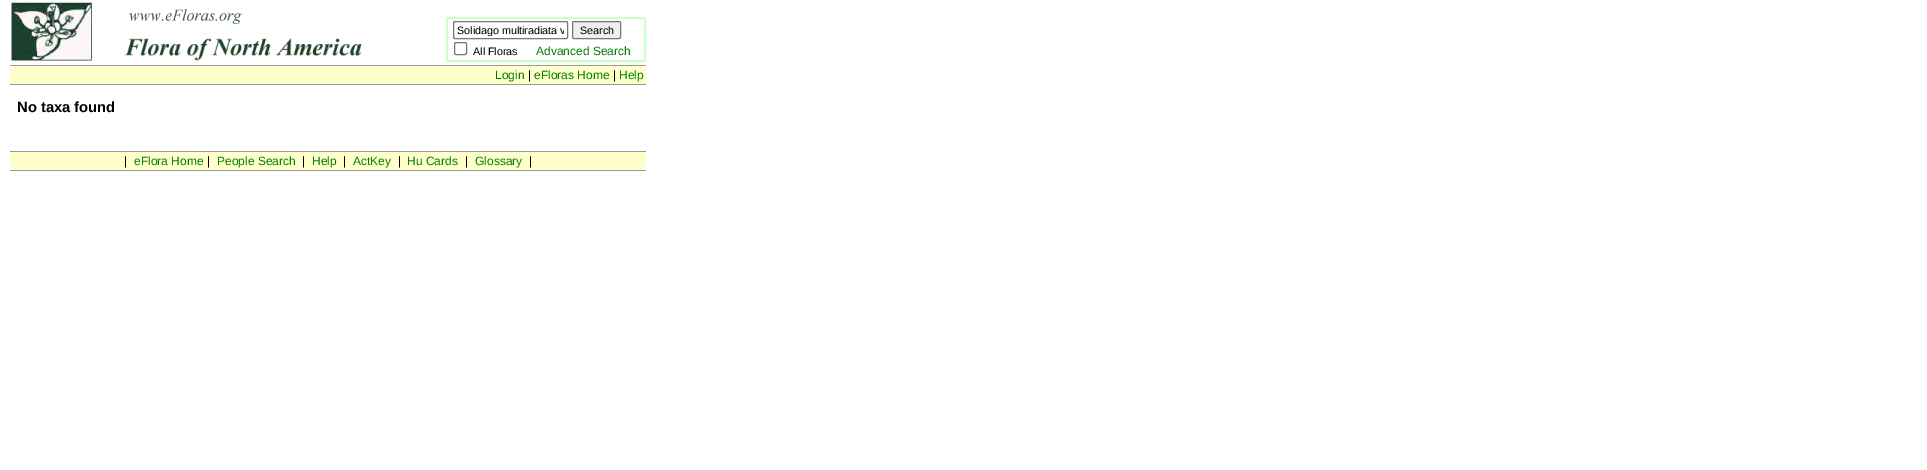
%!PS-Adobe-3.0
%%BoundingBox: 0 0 1927 470
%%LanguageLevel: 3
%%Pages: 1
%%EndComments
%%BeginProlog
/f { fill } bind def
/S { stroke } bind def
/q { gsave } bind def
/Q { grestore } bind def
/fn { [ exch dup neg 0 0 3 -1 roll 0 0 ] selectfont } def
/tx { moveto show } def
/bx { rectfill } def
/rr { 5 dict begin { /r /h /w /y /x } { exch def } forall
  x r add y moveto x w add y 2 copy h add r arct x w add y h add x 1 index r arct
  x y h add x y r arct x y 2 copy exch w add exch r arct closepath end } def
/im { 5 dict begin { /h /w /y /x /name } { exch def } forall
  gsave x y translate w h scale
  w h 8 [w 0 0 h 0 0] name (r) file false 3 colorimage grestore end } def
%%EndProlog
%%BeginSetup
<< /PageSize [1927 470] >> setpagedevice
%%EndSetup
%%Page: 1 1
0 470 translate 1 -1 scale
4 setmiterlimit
1 setgray
0 0 1927 470 bx
(image0.raw) 11 2 351 59 im
0.8 1 0.8 setrgbcolor
446.5 17.5 199 44 rectstroke
447.5 18.5 197 42 rectstroke
0.463 setgray
453.5 21.5 114 17 1.5 rr S
q
457 24 107 12 rectclip
/LiberationSans-Regular 10.75 fn
0 setgray
(Solidago multiradiata v) 457 34 tx
Q
0.937 setgray
572.5 21.5 48 17 1.5 rr q f Q
0.463 setgray
S
/LiberationSans-Regular 10.75 fn
0 setgray
(Search) 580 34 tx
0.463 setgray
454.5 42.5 12 12 1.5 rr S
0 setgray
(All Floras) 473 55 tx
/LiberationSans-Regular 12 fn
0 0.502 0 setrgbcolor
(Advanced Search) 536 55 tx
0.6 setgray
10 65 636 1 bx
1 1 0.8 setrgbcolor
10 66 636 18 bx
0 0.502 0 setrgbcolor
(Login) 495 79 tx
0 setgray
(|) 528 79 tx
0 0.502 0 setrgbcolor
(eFloras Home) 534 79 tx
0 setgray
(|) 613 79 tx
0 0.502 0 setrgbcolor
(Help) 619 79 tx
0.6 setgray
10 84 636 1 bx
/LiberationSans-Bold 14.75 fn
0 setgray
(No taxa found) 17 112 tx
0.6 setgray
10 151 636 1 bx
1 1 0.8 setrgbcolor
10 152 636 18 bx
/LiberationSans-Regular 12 fn
0 setgray
(|) 124 165 tx
0 0.502 0 setrgbcolor
(eFlora Home) 134 165 tx
0 setgray
(|) 207 165 tx
0 0.502 0 setrgbcolor
(People Search) 217 165 tx
0 setgray
(|) 302 165 tx
0 0.502 0 setrgbcolor
(Help) 312 165 tx
0 setgray
(|) 343 165 tx
0 0.502 0 setrgbcolor
(ActKey) 353 165 tx
0 setgray
(|) 398 165 tx
0 0.502 0 setrgbcolor
(Hu Cards) 407 165 tx
0 setgray
(|) 465 165 tx
0 0.502 0 setrgbcolor
(Glossary) 475 165 tx
0 setgray
(|) 529 165 tx
0.6 setgray
10 170 636 1 bx
showpage
%%EOF
